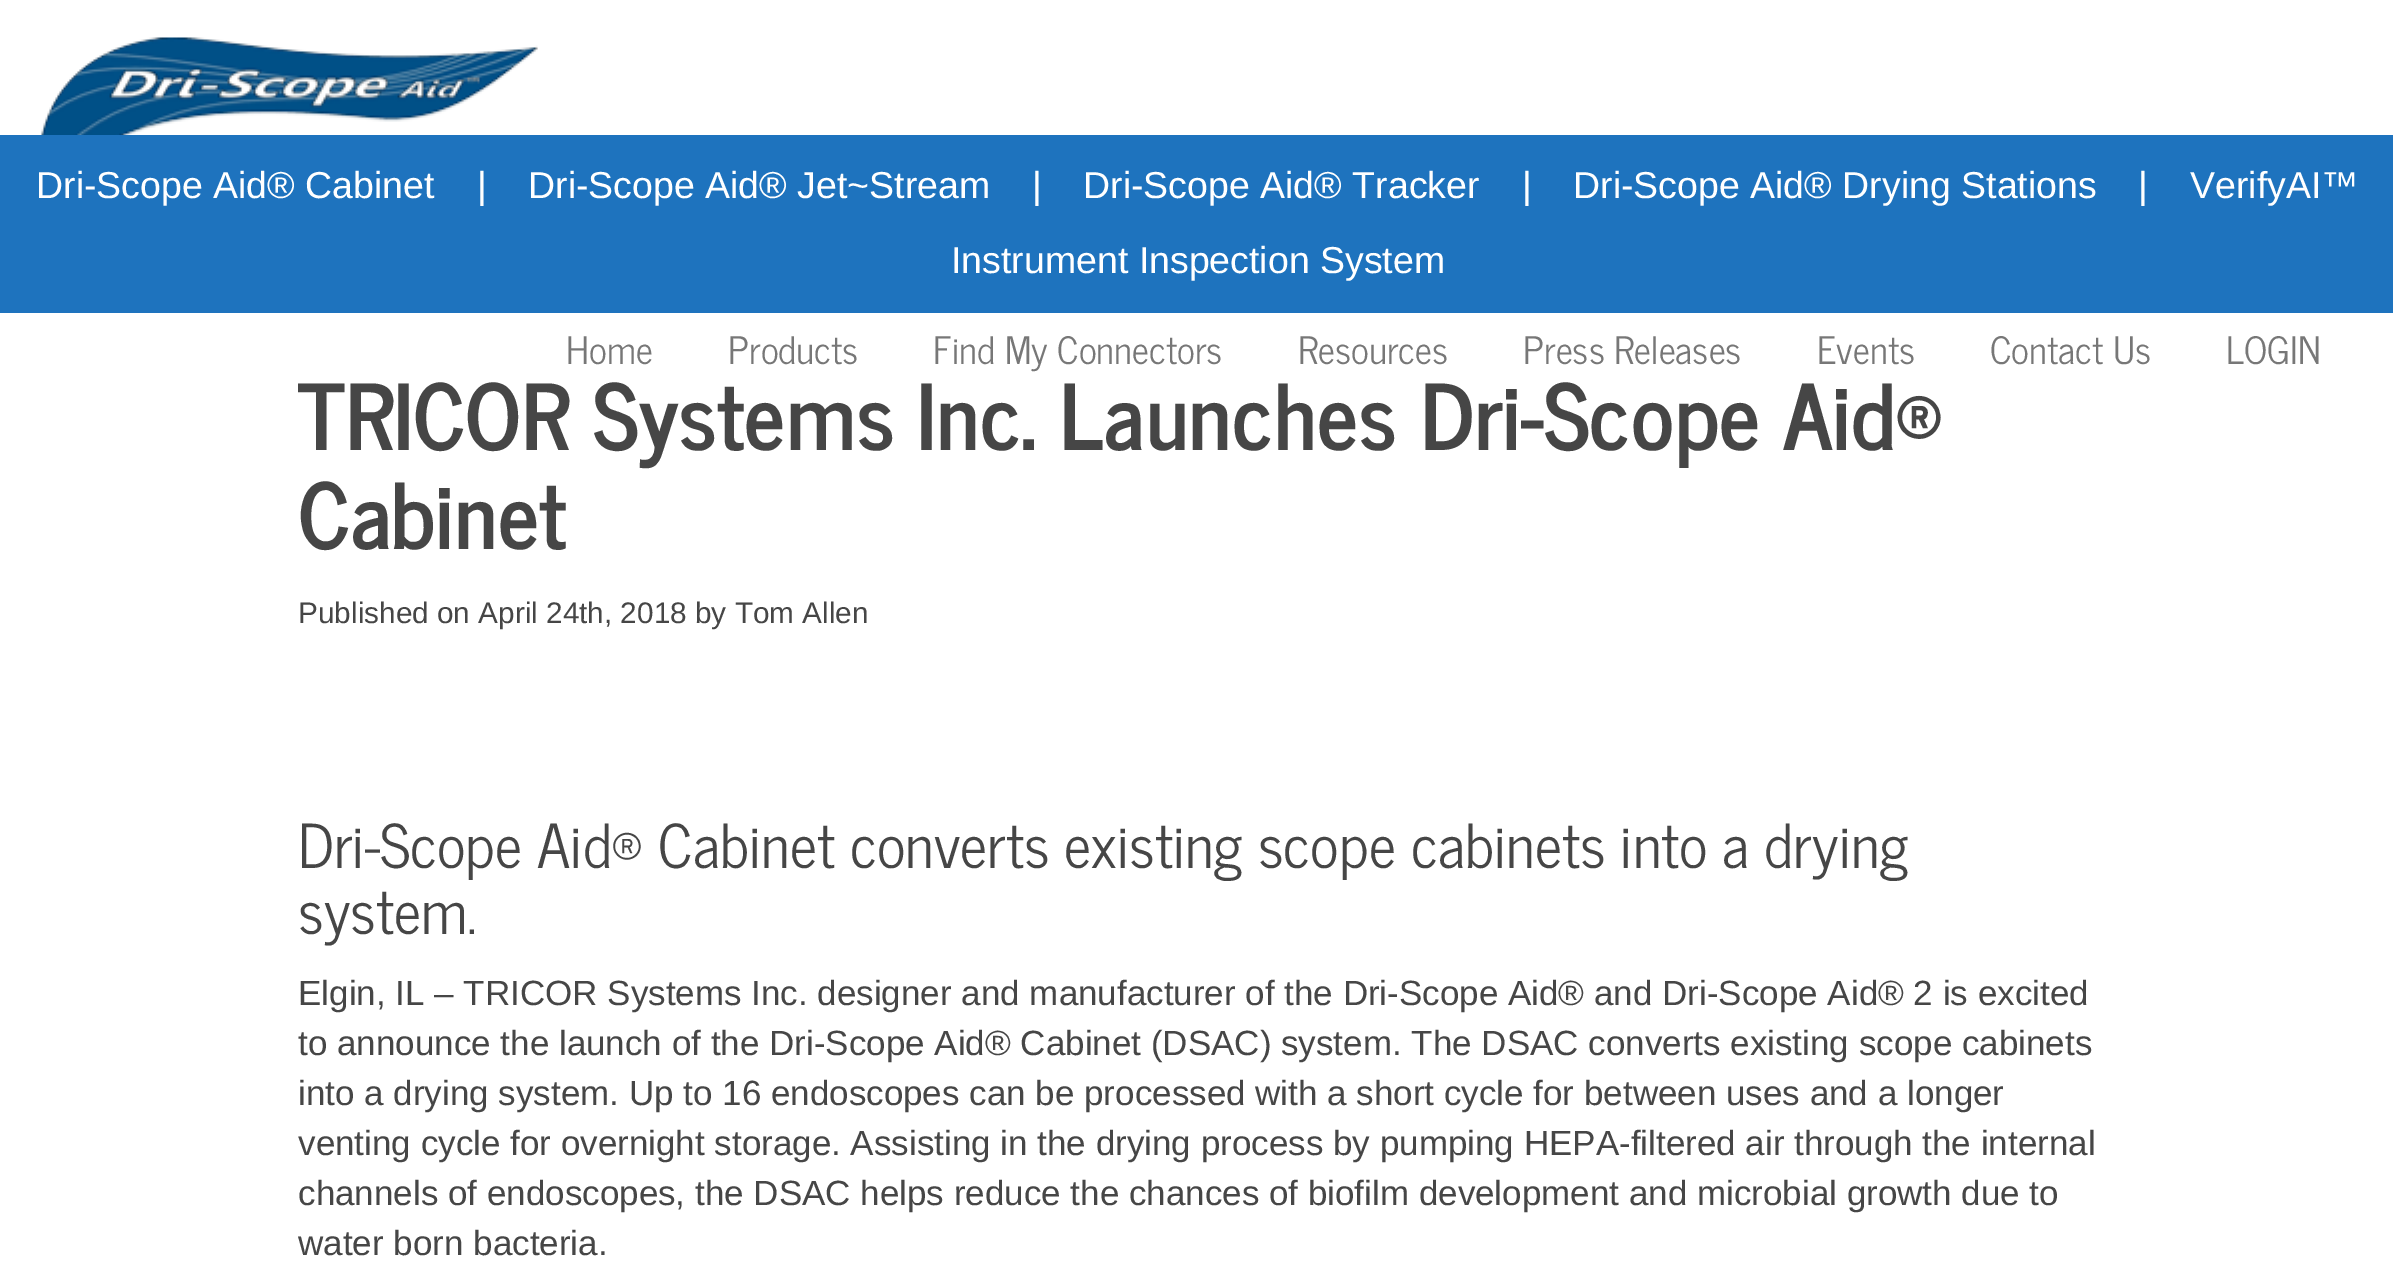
%!PS-Adobe-3.0
%%BoundingBox: 0 0 2393 1261
%%LanguageLevel: 3
%%Pages: 1
%%EndComments
%%BeginProlog
/fn { [ exch dup neg 0 0 3 -1 roll 0 0 ] selectfont } def
/tx { moveto show } def
/bx { rectfill } def
/im { 5 dict begin { /h /w /y /x /name } { exch def } forall
  gsave x y translate w h scale
  w h 8 [w 0 0 h 0 0] name (r) file false 3 colorimage grestore end } def
%%EndProlog
%%BeginSetup
<< /PageSize [2393 1261] >> setpagedevice
%%EndSetup
%%Page: 1 1
0 1261 translate 1 -1 scale
4 setmiterlimit
1 setgray
0 0 2393 1261 bx
0.118 0.451 0.745 setrgbcolor
0 135 2393 178 bx
/LiberationSans-Regular 37.5 fn
1 setgray
(Dri-Scope Aid® Cabinet) 36 198 tx
(|) 477 198 tx
(Dri-Scope Aid® Jet~Stream) 528 198 tx
(|) 1032 198 tx
(Dri-Scope Aid® Tracker) 1083 198 tx
(|) 1522 198 tx
(Dri-Scope Aid® Drying Stations) 1573 198 tx
(|) 2138 198 tx
(VerifyAI™) 2190 198 tx
(Instrument Inspection System) 951 273 tx
(image0.raw) 41 37 497 98 im
/NewsCycle-Regular 37.5 fn
0.467 setgray
(Home) 566 364 tx
(Products) 728 364 tx
(Find My Connectors) 933 364 tx
(Resources) 1298 364 tx
(Press Releases) 1523 364 tx
(Events) 1817 364 tx
(Contact Us) 1990 364 tx
(LOGIN) 2226 364 tx
/NewsCycle-Bold 90 fn
0.275 setgray
(TRICOR Systems Inc. Launches Dri-Scope Aid®) 298 450 tx
(Cabinet) 298 549 tx
/LiberationSans-Regular 29.75 fn
(Published on April 24th, 2018 by Tom Allen) 298 623 tx
/NewsCycle-Regular 60 fn
(Dri-Scope Aid® Cabinet converts existing scope cabinets into a drying) 298 868 tx
(system.) 298 934 tx
/LiberationSans-Regular 35 fn
(Elgin, IL – TRICOR Systems Inc. designer and manufacturer of the Dri-Scope Aid® and Dri-Scope Aid® 2 is excited) 298 1005 tx
(to announce the launch of the Dri-Scope Aid® Cabinet \(DSAC\) system. The DSAC converts existing scope cabinets) 298 1055 tx
(into a drying system. Up to 16 endoscopes can be processed with a short cycle for between uses and a longer) 298 1105 tx
(venting cycle for overnight storage. Assisting in the drying process by pumping HEPA-filtered air through the internal) 298 1155 tx
(channels of endoscopes, the DSAC helps reduce the chances of biofilm development and microbial growth due to) 298 1205 tx
(water born bacteria.) 298 1255 tx
showpage
%%EOF
